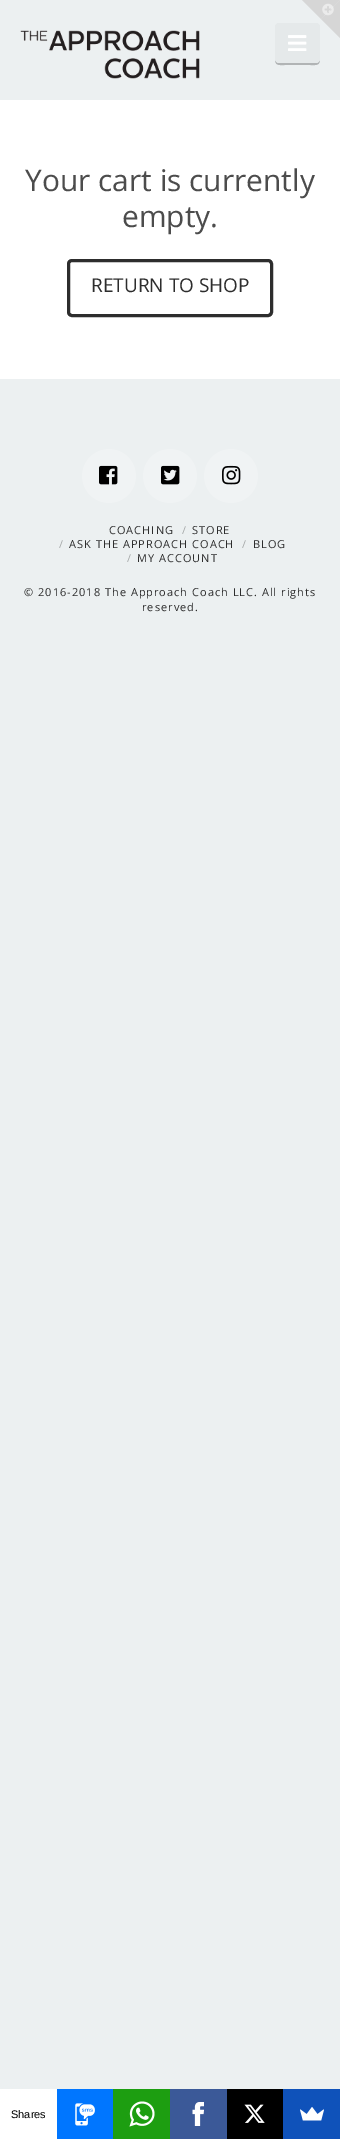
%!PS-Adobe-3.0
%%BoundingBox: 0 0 340 2139
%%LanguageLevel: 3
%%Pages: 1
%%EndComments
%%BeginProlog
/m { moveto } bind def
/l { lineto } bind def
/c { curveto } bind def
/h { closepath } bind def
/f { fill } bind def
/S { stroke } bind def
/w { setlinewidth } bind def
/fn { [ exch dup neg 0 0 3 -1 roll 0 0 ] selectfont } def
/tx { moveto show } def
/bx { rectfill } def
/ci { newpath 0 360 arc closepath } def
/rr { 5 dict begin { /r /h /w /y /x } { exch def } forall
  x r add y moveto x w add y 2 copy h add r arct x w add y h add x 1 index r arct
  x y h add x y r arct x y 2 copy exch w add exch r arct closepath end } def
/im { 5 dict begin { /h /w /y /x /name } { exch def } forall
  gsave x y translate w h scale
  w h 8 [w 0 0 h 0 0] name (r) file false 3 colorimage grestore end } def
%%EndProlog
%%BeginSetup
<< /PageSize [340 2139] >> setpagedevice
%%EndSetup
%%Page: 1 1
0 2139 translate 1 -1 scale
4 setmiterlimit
0.925 0.941 0.945 setrgbcolor
0 0 340 2139 bx
0.839 setgray
302 0 m 340 0 l 321 19 l h f
340 0 m 340 38 l 321 19 l h f
(image0.raw) 322 3 12 13 im
1 setgray
0 100 340 279 bx
(image1.raw) 20 30 180 49 im
0.694 0.706 0.71 setrgbcolor
275 59 m 275 66 279 65 285 65 c 310 65 l 316 65 320 66 320 59 c 320 61 318 63 316 63 c 279 63 l 277 63 275 61 275 59 c h f
0.898 0.914 0.918 setrgbcolor
275 23 45 40 4 rr f
(image2.raw) 288 35 19 16 im
/OpenSans-Regular 29.9 fn
0.298 setgray
(Your cart is currently) 25 191 tx
(empty.) 122 227 tx
0.176 setgray
3 w
68.5 260.5 203 55 3.5 rr S
/OpenSans-Regular 19 fn
(RETURN TO SHOP) 91 292 tx
0.941 0.953 0.957 setrgbcolor
109 476 27 ci f
(image3.raw) 99 465 19 20 im
170 476 27 ci f
(image4.raw) 161 465 19 20 im
231 476 27 ci f
(image5.raw) 222 465 19 20 im
/OpenSans-Regular 11 fn
0.176 setgray
109 534 m 1 0 (COACHING) ashow
0.659 0.671 0.671 setrgbcolor
(/) 182 534 tx
0.176 setgray
192 534 m 1 0 (STORE) ashow
0.659 0.671 0.671 setrgbcolor
(/) 59 548 tx
0.176 setgray
69 548 m 1 0 (ASK THE APPROACH COACH) ashow
0.659 0.671 0.671 setrgbcolor
(/) 242 548 tx
0.176 setgray
253 548 m 1 0 (BLOG) ashow
0.659 0.671 0.671 setrgbcolor
(/) 127 562 tx
0.176 setgray
137 562 m 1 0 (MY ACCOUNT) ashow
24 596 m 1 0 (© 2016-2018 The Approach Coach LLC. All rights) ashow
142 611 m 1 0 (reserved.) ashow
1 setgray
0 2089 57 50 bx
/LiberationSans-Regular 11 fn
0 setgray
(Shares) 11 2118 tx
0 0.463 1 setrgbcolor
57 2089 56 50 bx
(image6.raw) 75 2103 20 23 im
0.114 0.62 0.067 setrgbcolor
113 2089 57 50 bx
(image7.raw) 129 2101 26 26 im
0.231 0.349 0.596 setrgbcolor
170 2089 57 50 bx
(image8.raw) 192 2102 12 24 im
0 setgray
227 2089 56 50 bx
(image9.raw) 244 2104 21 19 im
0.059 0.322 0.729 setrgbcolor
283 2089 57 50 bx
(image10.raw) 300 2107 24 14 im
showpage
%%EOF
